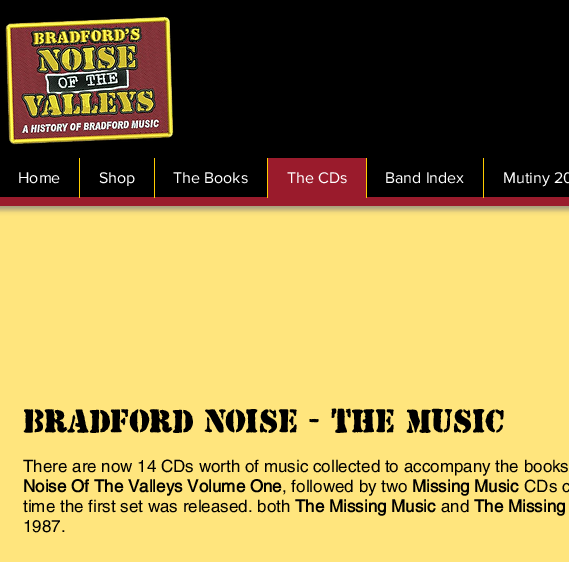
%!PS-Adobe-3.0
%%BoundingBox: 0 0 569 562
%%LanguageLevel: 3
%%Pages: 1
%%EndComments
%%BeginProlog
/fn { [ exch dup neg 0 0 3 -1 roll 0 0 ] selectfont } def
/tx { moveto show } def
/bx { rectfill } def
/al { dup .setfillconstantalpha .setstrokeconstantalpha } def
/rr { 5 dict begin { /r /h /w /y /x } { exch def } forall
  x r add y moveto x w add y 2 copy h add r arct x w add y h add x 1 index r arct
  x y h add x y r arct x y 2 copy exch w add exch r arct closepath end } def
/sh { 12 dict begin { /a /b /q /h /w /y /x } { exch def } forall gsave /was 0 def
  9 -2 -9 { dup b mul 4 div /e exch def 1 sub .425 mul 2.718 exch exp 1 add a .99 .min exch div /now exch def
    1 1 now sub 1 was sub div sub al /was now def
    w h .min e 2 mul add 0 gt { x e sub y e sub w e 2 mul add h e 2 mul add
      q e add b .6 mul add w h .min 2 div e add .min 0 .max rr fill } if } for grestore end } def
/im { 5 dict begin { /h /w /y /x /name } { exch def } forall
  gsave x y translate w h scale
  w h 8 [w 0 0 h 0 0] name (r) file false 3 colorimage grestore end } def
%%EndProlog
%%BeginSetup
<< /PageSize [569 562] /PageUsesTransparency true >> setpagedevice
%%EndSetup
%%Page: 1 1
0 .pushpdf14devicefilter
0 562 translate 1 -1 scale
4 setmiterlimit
1 0.898 0.49 setrgbcolor
0 0 569 562 bx
0.49 setgray
-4 -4 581 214 0 2.5 0.7 sh
0 setgray
0 0 569 197 bx
0.604 0.106 0.173 setrgbcolor
0 197 569 9 bx
(image0.raw) 5 16 169 129 im
/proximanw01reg-Regular 16 fn
1 setgray
(Home) 18 183 tx
1 0.8 0 setrgbcolor
79 158 1 40 bx
1 setgray
(Shop) 99 183 tx
1 0.8 0 setrgbcolor
154 158 1 40 bx
1 setgray
(The Books) 173 183 tx
0.604 0.106 0.173 setrgbcolor
268 158 98 39 bx
1 0.8 0 setrgbcolor
267 158 1 40 bx
1 setgray
(The CDs) 287 183 tx
1 0.8 0 setrgbcolor
366 158 1 40 bx
1 setgray
(Band Index) 385 183 tx
1 0.8 0 setrgbcolor
483 158 1 40 bx
1 setgray
(Mutiny 20) 503 183 tx
/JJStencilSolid-Regular 28 fn
0 setgray
(Bradford Noise - the music) 23 432 tx
/helvetica-Regular 17 fn
(There are now 14 CDs worth of music collected to accompany the books) 23 472 tx
/helvetica-Bold 17 fn
(Noise Of The Valleys Volume One) 23 492 tx
/helvetica-Regular 17 fn
(, followed by two) 282 492 tx
/helvetica-Bold 17 fn
(Missing Music) 412 492 tx
/helvetica-Regular 17 fn
(CDs c) 524 492 tx
(time the first set was released. both) 23 512 tx
/helvetica-Bold 17 fn
(The Missing Music) 295 512 tx
/helvetica-Regular 17 fn
(and) 441 512 tx
/helvetica-Bold 17 fn
(The Missing) 474 512 tx
/helvetica-Regular 17 fn
(1987.) 23 532 tx
.poppdf14devicefilter showpage
%%EOF
